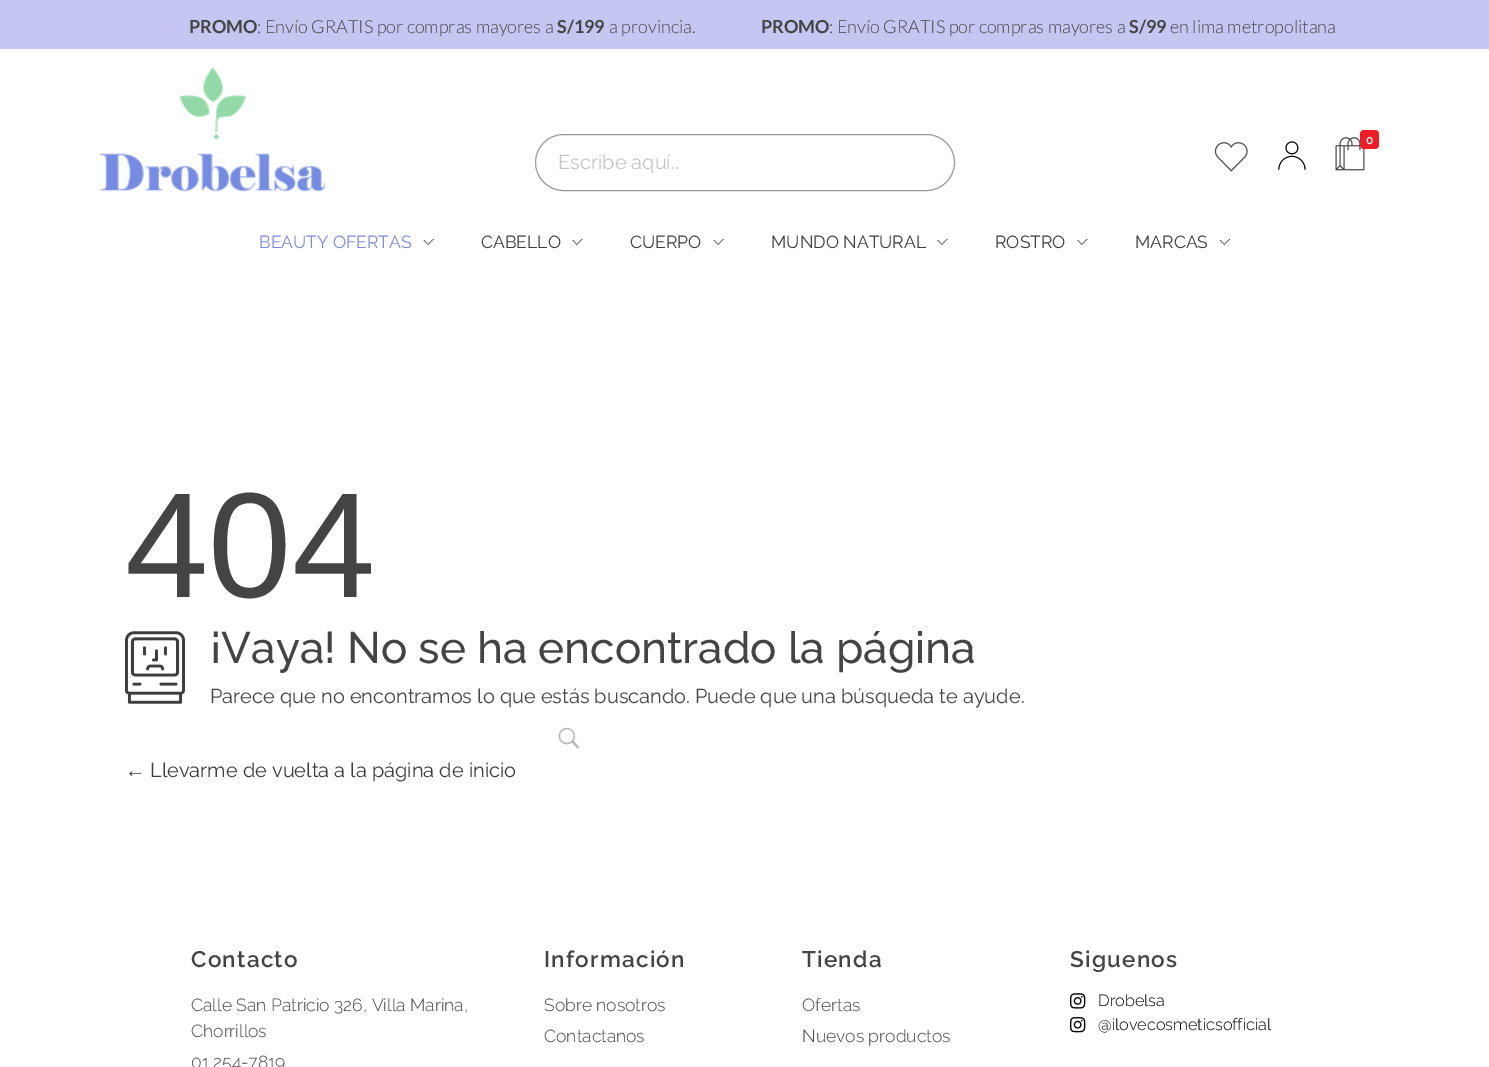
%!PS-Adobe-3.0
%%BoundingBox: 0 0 1489 1067
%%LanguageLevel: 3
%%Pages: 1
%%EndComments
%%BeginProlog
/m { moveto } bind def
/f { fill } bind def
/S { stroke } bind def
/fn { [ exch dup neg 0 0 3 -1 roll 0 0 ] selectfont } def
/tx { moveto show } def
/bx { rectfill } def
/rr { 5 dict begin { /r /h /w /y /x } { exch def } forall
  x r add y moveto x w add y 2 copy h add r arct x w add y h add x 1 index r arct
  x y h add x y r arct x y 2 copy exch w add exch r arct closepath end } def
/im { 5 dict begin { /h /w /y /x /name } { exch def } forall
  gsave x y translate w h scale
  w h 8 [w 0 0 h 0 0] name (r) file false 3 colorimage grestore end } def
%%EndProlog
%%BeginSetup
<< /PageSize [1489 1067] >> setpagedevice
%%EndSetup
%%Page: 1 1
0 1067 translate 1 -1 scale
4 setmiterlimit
1 setgray
0 0 1489 1067 bx
0.773 0.776 0.945 setrgbcolor
0 0 1489 49 bx
/Lato-Bold 18 fn
0.267 setgray
(PROMO) 189 33 tx
/Lato-Light 18 fn
(: Envío GRATIS por compras mayores a) 257 33 tx
/Lato-Bold 18 fn
(S/199) 557 33 tx
/Lato-Light 18 fn
(a provincia.) 609 33 tx
/Lato-Bold 18 fn
(PROMO) 761 33 tx
/Lato-Light 18 fn
(: Envío GRATIS por compras mayores a) 829 33 tx
/Lato-Bold 18 fn
(S/99) 1129 33 tx
/Lato-Light 18 fn
(en lima metropolitana) 1170 33 tx
(image0.raw) 100 67 225 125 im
(image1.raw) 1214 142 34 30 im
(image2.raw) 1278 141 28 29 im
(image3.raw) 1335 137 30 34 im
0.933 0.114 0.149 setrgbcolor
1360 130 19 19 4 rr f
/Raleway-SemiBold 12 fn
1 setgray
(0) 1366 144 tx
0.624 0.604 0.604 setrgbcolor
535.5 134.5 419 56 28 rr S
/Raleway-Regular 20 fn
0.773 setgray
(Escribe aquí..) 558 169 tx
/Raleway-Regular 17.5 fn
0.482 0.545 0.871 setrgbcolor
(BEAUTY OFERTAS) 259 248 tx
(image4.raw) 423 239 11 6 im
0.239 setgray
(CABELLO) 481 248 tx
(image5.raw) 572 239 11 6 im
(CUERPO) 630 248 tx
(image4.raw) 713 239 11 6 im
(MUNDO NATURAL) 771 248 tx
(image5.raw) 937 239 11 6 im
(ROSTRO) 995 248 tx
(image5.raw) 1077 239 11 6 im
(MARCAS) 1135 248 tx
(image6.raw) 1220 239 10 6 im
/LiberationSans-Regular 150 fn
0.267 setgray
(404) 125 597 tx
(image7.raw) 125 631 60 73 im
/Raleway-Medium 44 fn
(¡Vaya! No se ha encontrado la página) 210 663 tx
/Raleway-Regular 20 fn
(Parece que no encontramos lo que estás buscando. Puede que una búsqueda te ayude.) 210 703 tx
(image8.raw) 558 727 22 22 im
/LiberationSans-Regular 20 fn
0.239 setgray
(←) 125 777 tx
/Raleway-Regular 20 fn
(Llevarme de vuelta a la página de inicio) 150 777 tx
/Raleway-SemiBold 22.5 fn
0.267 setgray
191 967 m 1.25 0 (Contacto) ashow
/Raleway-Light 17.5 fn
(Calle San Patricio 326, Villa Marina,) 191 1011 tx
(Chorrillos) 191 1037 tx
(01 254-7819) 191 1068 tx
/Raleway-SemiBold 22.5 fn
544 967 m 1.25 0 (Información) ashow
/Raleway-Light 17.5 fn
(Sobre nosotros) 544 1011 tx
(Contactanos) 544 1042 tx
/Raleway-SemiBold 22.5 fn
802 967 m 1.25 0 (Tienda) ashow
/Raleway-Light 17.5 fn
(Ofertas) 802 1011 tx
(Nuevos productos) 802 1042 tx
/Raleway-SemiBold 22.5 fn
1070 967 m 1.25 0 (Siguenos) ashow
(image9.raw) 1070 993 16 16 im
/Raleway-Light 16.25 fn
0 setgray
(Drobelsa) 1098 1006 tx
(image10.raw) 1070 1017 16 16 im
(@ilovecosmeticsofficial) 1098 1030 tx
showpage
%%EOF
